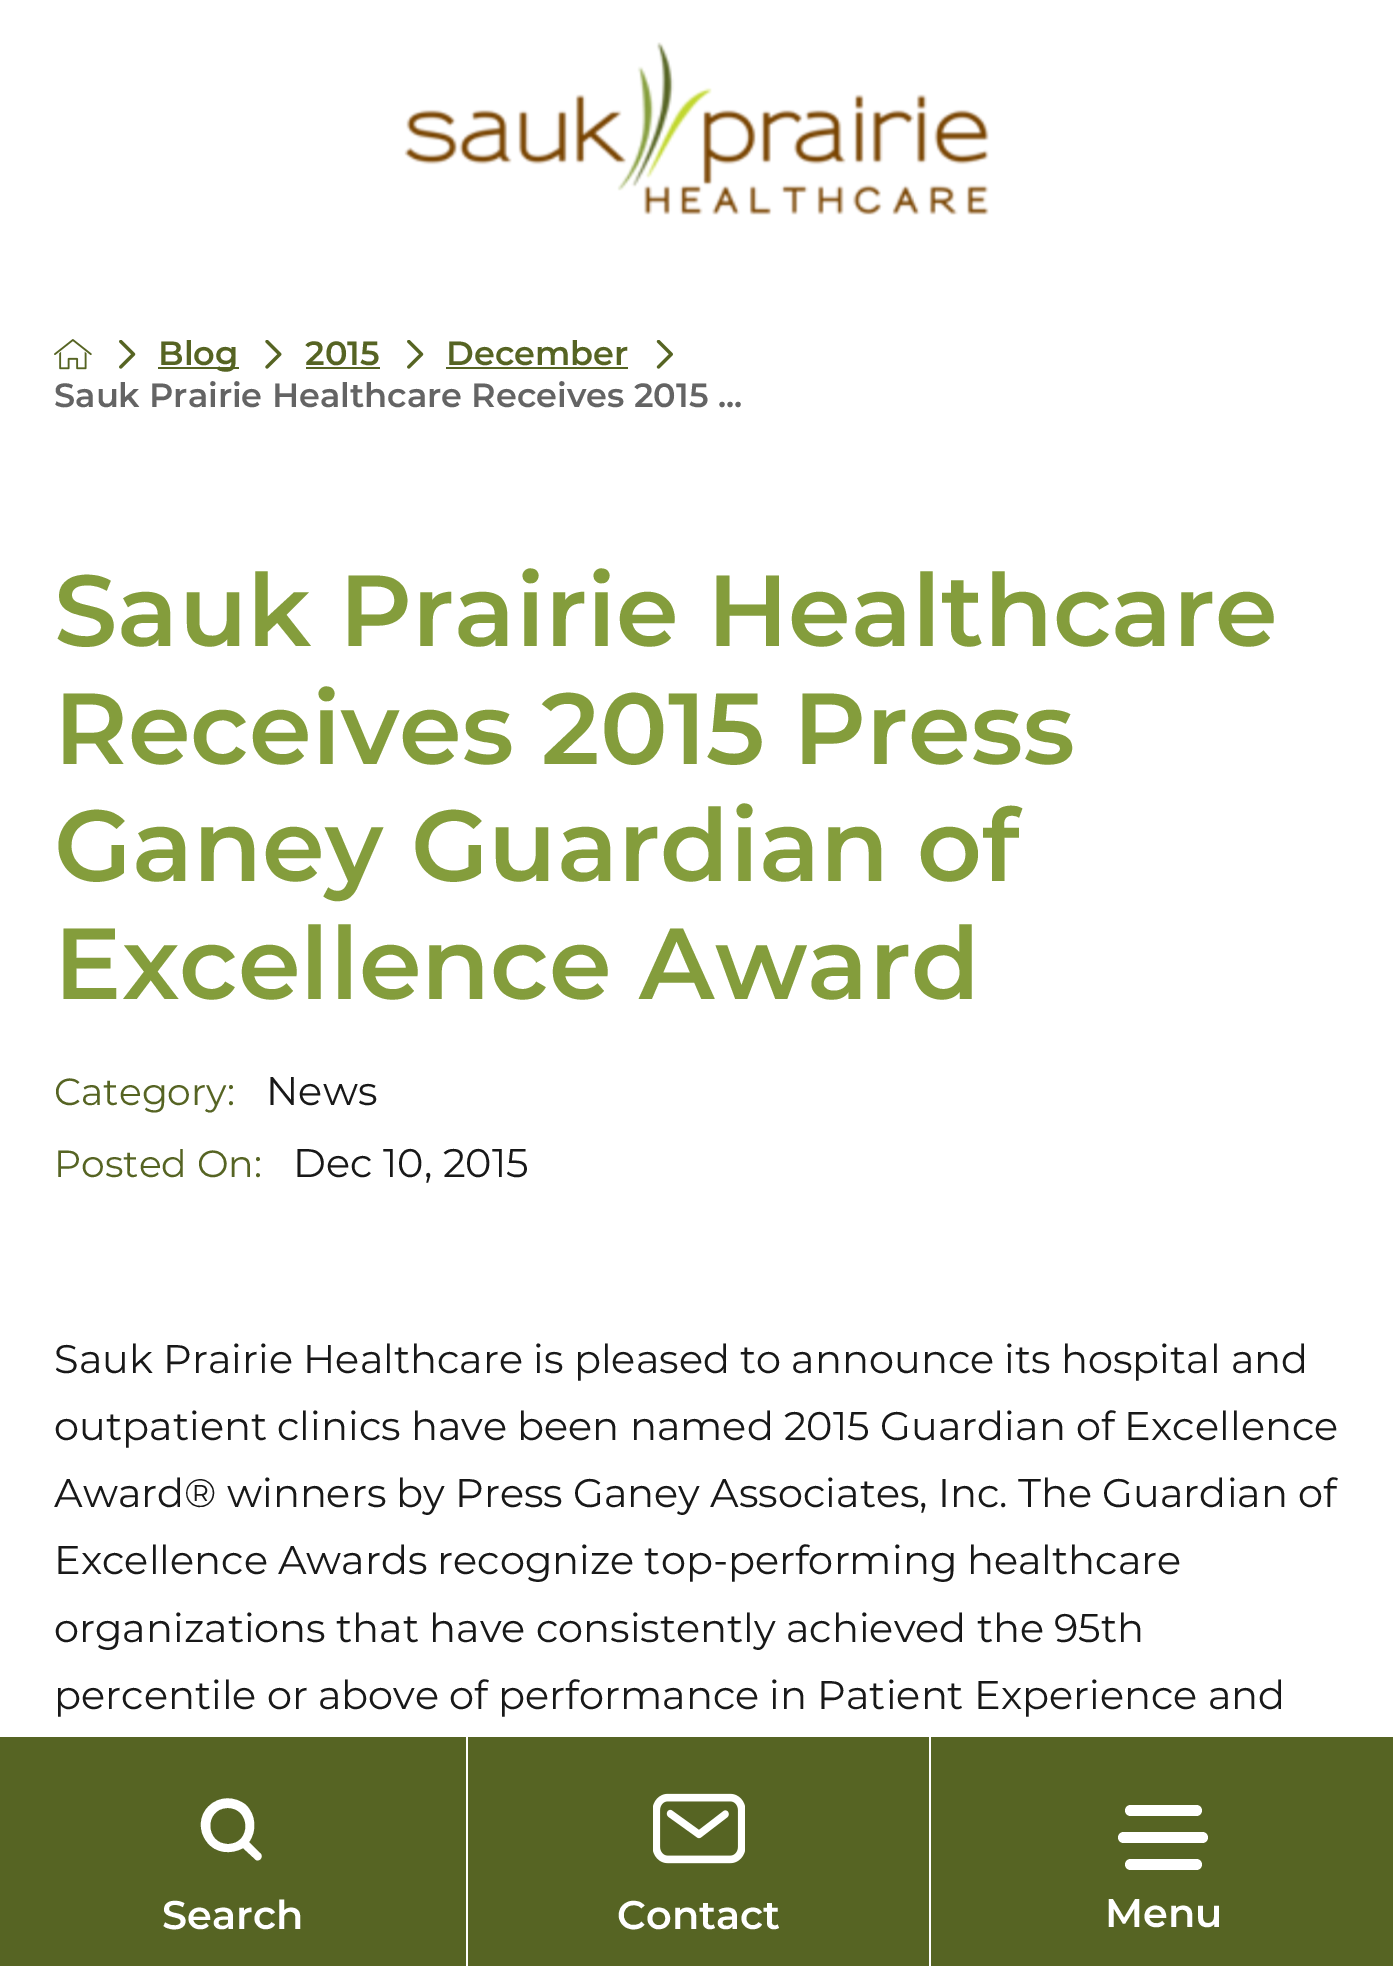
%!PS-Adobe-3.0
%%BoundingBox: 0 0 1393 1966
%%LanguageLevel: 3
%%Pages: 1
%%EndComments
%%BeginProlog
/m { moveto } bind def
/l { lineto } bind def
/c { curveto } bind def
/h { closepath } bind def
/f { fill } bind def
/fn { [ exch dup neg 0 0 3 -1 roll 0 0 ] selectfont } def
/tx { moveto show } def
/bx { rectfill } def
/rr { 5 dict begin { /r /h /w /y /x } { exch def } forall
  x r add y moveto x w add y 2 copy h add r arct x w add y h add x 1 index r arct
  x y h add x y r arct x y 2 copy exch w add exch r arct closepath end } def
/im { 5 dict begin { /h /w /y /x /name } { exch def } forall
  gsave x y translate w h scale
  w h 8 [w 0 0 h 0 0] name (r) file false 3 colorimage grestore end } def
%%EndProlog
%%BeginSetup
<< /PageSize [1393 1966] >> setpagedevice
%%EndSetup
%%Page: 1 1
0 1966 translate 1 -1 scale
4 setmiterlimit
1 setgray
0 0 1393 1966 bx
(image0.raw) 54 339 38 31 im
(image1.raw) 119 340 17 29 im
0.337 0.392 0.137 setrgbcolor
158 367 81 2 bx
/Montserrat-Thin 33.6 fn
(Blog) 158 365 tx
(image2.raw) 265 340 17 29 im
(2015) 305 365 tx
306 367 74 2 bx
(image1.raw) 407 340 17 29 im
(December) 446 365 tx
446 367 182 2 bx
(image3.raw) 656 340 17 29 im
0.392 setgray
(Sauk Prairie Healthcare Receives 2015 ...) 54 407 tx
/Montserrat-Thin 100.75 fn
0.518 0.616 0.235 setrgbcolor
(Sauk Prairie Healthcare) 54 646 tx
(Receives 2015 Press) 54 764 tx
(Ganey Guardian of) 54 881 tx
(Excellence Award) 54 999 tx
/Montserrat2-Thin 37.75 fn
0.337 0.392 0.137 setrgbcolor
(Category:) 54 1105 tx
/Montserrat2-Thin 39.9 fn
0.094 setgray
(News) 266 1105 tx
/Montserrat2-Thin 37.75 fn
0.337 0.392 0.137 setrgbcolor
(Posted On:) 54 1177 tx
/Montserrat2-Thin 39.9 fn
0.094 setgray
(Dec 10, 2015) 293 1177 tx
54 1373 m -0.25 0 32 (Sauk Prairie Healthcare is pleased to announce its hospital and) widthshow
54 1440 m -0.25 0 32 (outpatient clinics have been named 2015 Guardian of Excellence) widthshow
54 1507 m -0.25 0 32 (Award® winners by Press Ganey Associates, Inc. The Guardian of) widthshow
54 1574 m -0.5 0 32 (Excellence Awards recognize top-performing healthcare) widthshow
54 1642 m -0.25 0 32 (organizations that have consistently achieved the 95th) widthshow
54 1709 m -0.25 0 32 (percentile or above of performance in Patient Experience and) widthshow
(image4.raw) 404 42 585 173 im
0.337 0.392 0.137 setrgbcolor
0 1737 1393 229 bx
1 setgray
249 1842 m 257 1831 256 1815 246 1805 c 235 1796 219 1796 209 1806 c 199 1815 198 1831 207 1842 c 215 1853 231 1855 243 1848 c 256 1860 l 260 1862 264 1856 260 1853 c h 228 1844 m 205 1844 204 1809 227 1808 c 251 1807 252 1844 228 1844 c h f
/Montserrat-Thin 39.9 fn
(Search) 162 1929 tx
466 1737 2 229 bx
(image5.raw) 653 1793 92 71 im
(Contact) 617 1929 tx
929 1737 2 229 bx
1125 1805 77 11 5.5 rr f
1118 1832 90 11 5.5 rr f
1125 1859 77 11 5.5 rr f
(Menu) 1105 1927 tx
showpage
%%EOF
